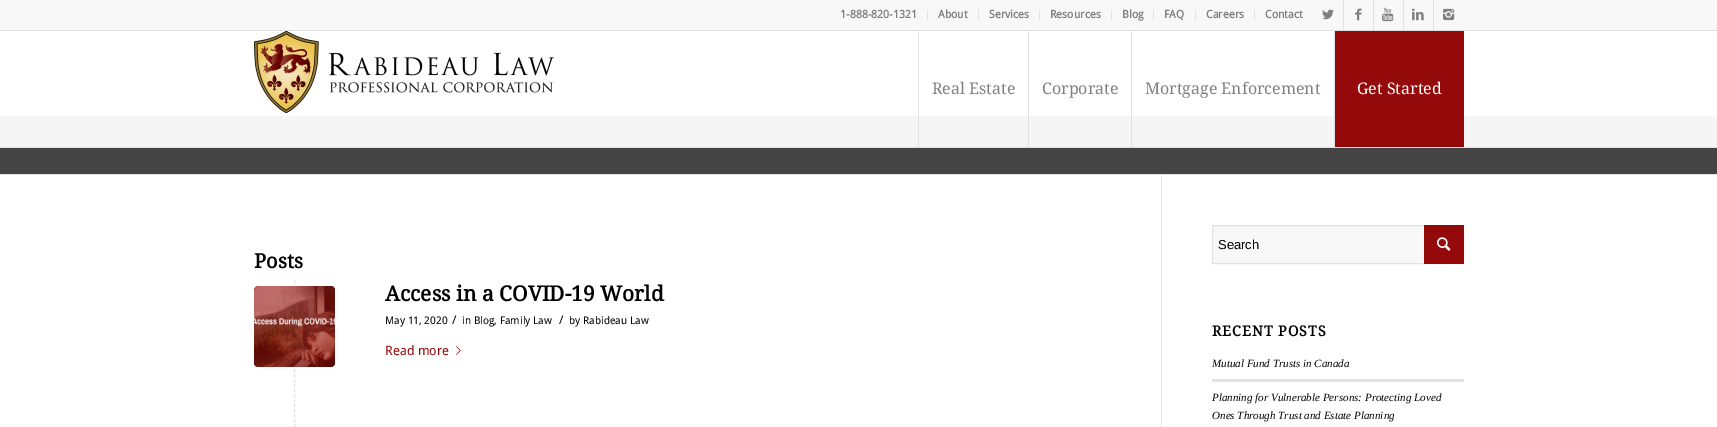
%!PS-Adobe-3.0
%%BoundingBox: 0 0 1717 427
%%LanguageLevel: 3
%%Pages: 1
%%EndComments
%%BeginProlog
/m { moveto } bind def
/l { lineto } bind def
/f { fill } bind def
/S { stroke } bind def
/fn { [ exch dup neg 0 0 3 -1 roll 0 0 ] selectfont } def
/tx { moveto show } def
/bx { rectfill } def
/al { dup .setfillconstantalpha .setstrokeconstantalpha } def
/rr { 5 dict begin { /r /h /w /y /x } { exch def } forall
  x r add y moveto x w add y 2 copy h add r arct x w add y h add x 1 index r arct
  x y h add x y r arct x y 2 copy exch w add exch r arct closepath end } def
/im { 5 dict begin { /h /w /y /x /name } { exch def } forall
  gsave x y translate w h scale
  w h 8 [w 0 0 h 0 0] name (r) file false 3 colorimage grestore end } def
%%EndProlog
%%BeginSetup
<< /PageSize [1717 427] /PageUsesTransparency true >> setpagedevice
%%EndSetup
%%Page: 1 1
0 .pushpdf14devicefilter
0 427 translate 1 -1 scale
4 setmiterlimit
1 setgray
0 0 1717 427 bx
0.973 setgray
0 0 1717 30 bx
0.882 setgray
0 30 1717 1 bx
927 10 1 10 bx
/DroidSans-Bold 11 fn
0.502 setgray
(1-888-820-1321) 840 18 tx
0.882 setgray
978 10 1 10 bx
0.502 setgray
(About) 938 18 tx
0.882 setgray
1039 10 1 10 bx
0.502 setgray
(Services) 989 18 tx
0.882 setgray
1111 10 1 10 bx
0.502 setgray
(Resources) 1050 18 tx
0.882 setgray
1153 10 1 10 bx
0.502 setgray
(Blog) 1122 18 tx
0.882 setgray
1195 10 1 10 bx
0.502 setgray
(FAQ) 1164 18 tx
0.882 setgray
1254 10 1 10 bx
0.502 setgray
(Careers) 1206 18 tx
(Contact) 1265 18 tx
0.882 setgray
1343 0 1 30 bx
(image0.raw) 1322 9 12 11 im
1373 0 1 30 bx
(image1.raw) 1355 8 7 13 im
1403 0 1 30 bx
(image2.raw) 1382 7 12 15 im
1433 0 1 30 bx
(image3.raw) 1412 8 12 13 im
(image4.raw) 1443 8 12 13 im
0.267 setgray
0 117 1717 57 bx
0.882 setgray
0 147 1717 1 bx
(image5.raw) 254 31 300 82 im
0.333 setgray
0 116 1717 1 bx
0.95 al
1 setgray
0 116 1717 31 bx
1 al
0.882 setgray
918 31 1 116 bx
/DroidSerif-Regular 16 fn
0.502 setgray
(Real Estate) 932 94 tx
0.882 setgray
1028 31 1 116 bx
0.502 setgray
(Corporate) 1042 94 tx
0.882 setgray
1131 31 1 116 bx
0.502 setgray
(Mortgage Enforcement) 1145 94 tx
0.58 0.035 0.035 setrgbcolor
1335 31 129 116 bx
0.882 setgray
1334 31 1 116 bx
1 setgray
(Get Started) 1357 94 tx
0.882 setgray
0 174 1717 1 bx
1161 175 1 252 bx
/DroidSerif-Bold 20 fn
0 setgray
(Posts) 254 268 tx
0.882 setgray
[3 1.97] 0 setdash
294.5 280 m 294.5 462 l S
/DroidSerif-Bold 21 fn
0 setgray
(Access in a COVID-19 World) 385 301 tx
/DroidSans-Regular 10.5 fn
(May 11, 2020) 385 324 tx
/DroidSans-Regular 12 fn
(/) 452 324 tx
/DroidSans-Regular 10.5 fn
(in Blog, Family Law) 462 324 tx
/DroidSans-Regular 12 fn
(/) 559 324 tx
/DroidSans-Regular 10.5 fn
(by Rabideau Law) 569 324 tx
/DroidSans-Regular 13 fn
0.58 0.035 0.035 setrgbcolor
(Read more) 385 355 tx
(image6.raw) 456 346 5 9 im
0 setgray
254 286 81 81 4 rr f
(image7.raw) 254 286 81 81 im
0.973 setgray
1213 226 211 37 bx
0.882 setgray
[] 0 setdash
1212.5 225.5 251 38 rectstroke
/LiberationSans-Regular 13 fn
0 setgray
(Search) 1218 249 tx
0.58 0.035 0.035 setrgbcolor
1424 225 40 39 bx
(image8.raw) 1437 237 14 14 im
/DroidSerif-Bold 14.25 fn
0 setgray
1212 336 m 1 0 (RECENT POSTS) ashow
/LiberationSerif-Italic 11.05 fn
(Mutual Fund Trusts in Canada) 1212 367 tx
0.882 setgray
1212 379 252 3 bx
0 setgray
(Planning for Vulnerable Persons: Protecting Loved) 1212 401 tx
(Ones Through Trust and Estate Planning) 1212 419 tx
.poppdf14devicefilter showpage
%%EOF
